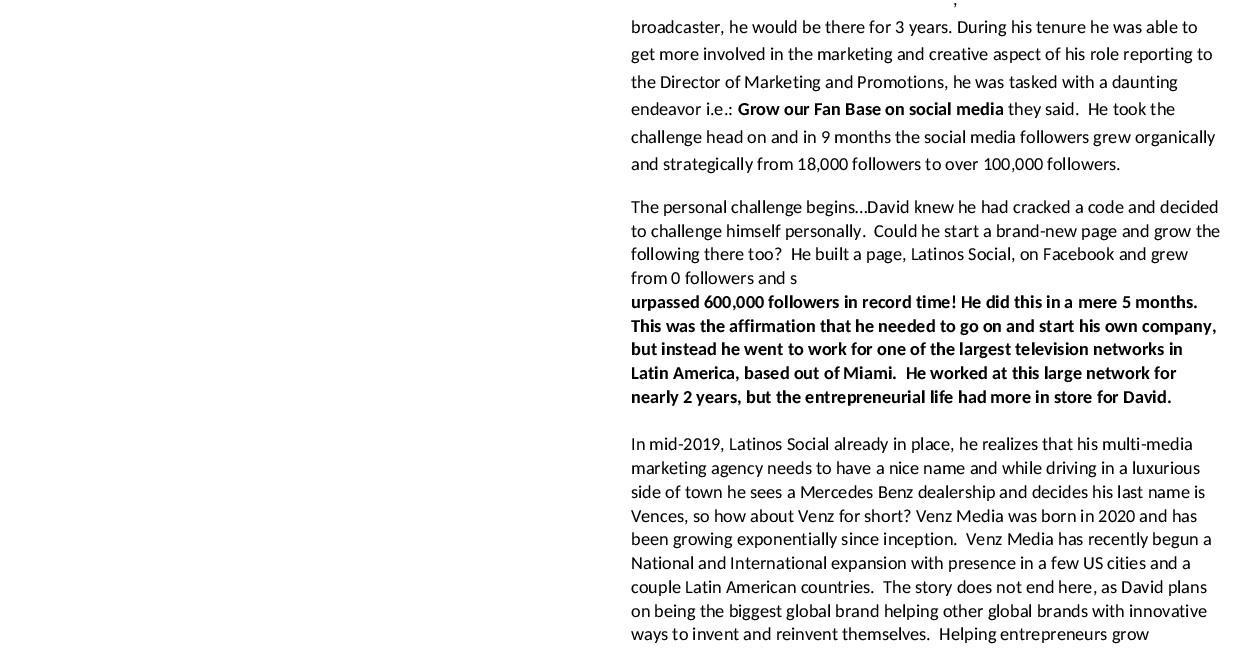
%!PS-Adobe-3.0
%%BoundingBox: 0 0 1237 658
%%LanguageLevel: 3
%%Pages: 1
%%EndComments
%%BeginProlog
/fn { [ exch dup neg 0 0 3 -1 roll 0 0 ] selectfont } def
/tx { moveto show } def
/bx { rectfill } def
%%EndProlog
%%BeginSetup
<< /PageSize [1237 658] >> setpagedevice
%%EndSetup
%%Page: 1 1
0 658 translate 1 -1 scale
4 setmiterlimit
1 setgray
0 0 1237 658 bx
/Carlito-Regular 18.3 fn
0 setgray
(,) 953 5 tx
(broadcaster, he would be there for 3 years. During his tenure he was able to) 631 33 tx
(get more involved in the marketing and creative aspect of his role reporting to) 631 60 tx
(the Director of Marketing and Promotions, he was tasked with a daunting) 631 88 tx
(endeavor i.e.:) 631 115 tx
/Carlito-Bold 18.3 fn
(Grow our Fan Base on social media) 738 115 tx
/Carlito-Regular 18.3 fn
(they said.  He took the) 1008 115 tx
(challenge head on and in 9 months the social media followers grew organically) 631 143 tx
(and strategically from 18,000 followers to over 100,000 followers.) 631 170 tx
(The personal challenge begins…David knew he had cracked a code and decided) 631 213 tx
(to challenge himself personally.  Could he start a brand-new page and grow the) 631 237 tx
(following there too?  He built a page, Latinos Social, on Facebook and grew) 631 260 tx
(from 0 followers and s) 631 284 tx
/Carlito-Bold 18.3 fn
(urpassed 600,000 followers in record time! He did this in a mere 5 months.) 631 308 tx
(This was the affirmation that he needed to go on and start his own company,) 631 332 tx
(but instead he went to work for one of the largest television networks in) 631 355 tx
(Latin America, based out of Miami.  He worked at this large network for) 631 379 tx
(nearly 2 years, but the entrepreneurial life had more in store for David.) 631 403 tx
/Carlito-Regular 18.3 fn
(In mid-2019, Latinos Social already in place, he realizes that his multi-media) 631 450 tx
(marketing agency needs to have a nice name and while driving in a luxurious) 631 474 tx
(side of town he sees a Mercedes Benz dealership and decides his last name is) 631 498 tx
(Vences, so how about Venz for short? Venz Media was born in 2020 and has) 631 522 tx
(been growing exponentially since inception.  Venz Media has recently begun a) 631 545 tx
(National and International expansion with presence in a few US cities and a) 631 569 tx
(couple Latin American countries.  The story does not end here, as David plans) 631 593 tx
(on being the biggest global brand helping other global brands with innovative) 631 617 tx
(ways to invent and reinvent themselves.  Helping entrepreneurs grow) 631 640 tx
showpage
%%EOF
